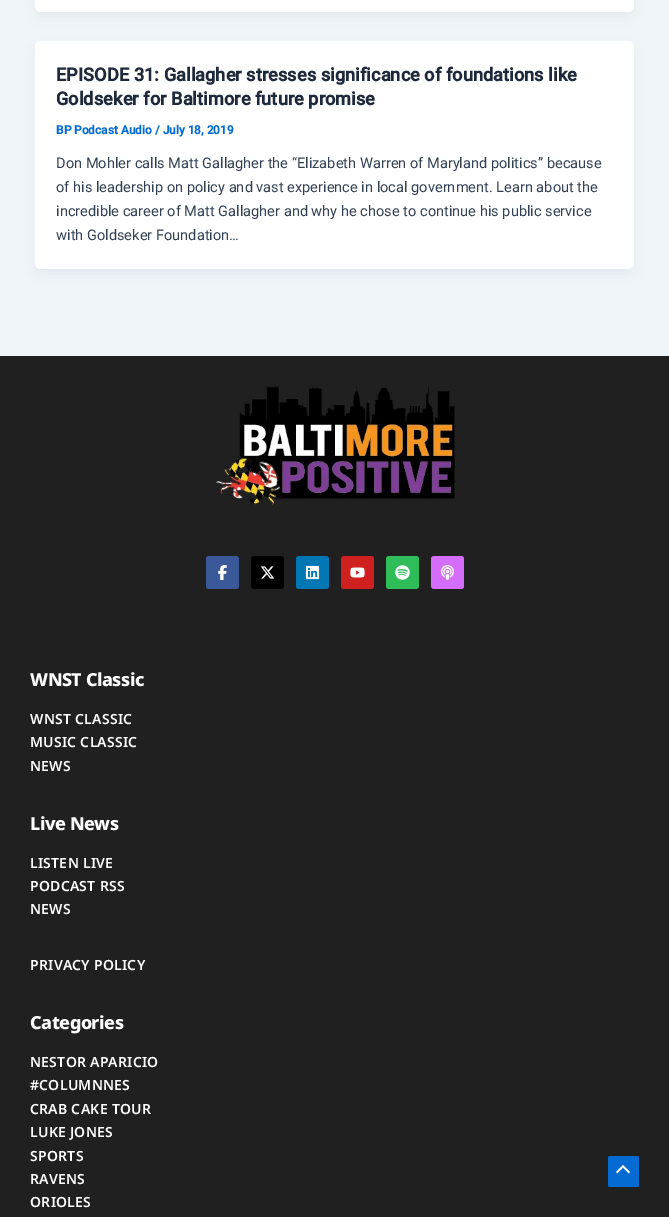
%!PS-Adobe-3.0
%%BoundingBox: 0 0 669 1217
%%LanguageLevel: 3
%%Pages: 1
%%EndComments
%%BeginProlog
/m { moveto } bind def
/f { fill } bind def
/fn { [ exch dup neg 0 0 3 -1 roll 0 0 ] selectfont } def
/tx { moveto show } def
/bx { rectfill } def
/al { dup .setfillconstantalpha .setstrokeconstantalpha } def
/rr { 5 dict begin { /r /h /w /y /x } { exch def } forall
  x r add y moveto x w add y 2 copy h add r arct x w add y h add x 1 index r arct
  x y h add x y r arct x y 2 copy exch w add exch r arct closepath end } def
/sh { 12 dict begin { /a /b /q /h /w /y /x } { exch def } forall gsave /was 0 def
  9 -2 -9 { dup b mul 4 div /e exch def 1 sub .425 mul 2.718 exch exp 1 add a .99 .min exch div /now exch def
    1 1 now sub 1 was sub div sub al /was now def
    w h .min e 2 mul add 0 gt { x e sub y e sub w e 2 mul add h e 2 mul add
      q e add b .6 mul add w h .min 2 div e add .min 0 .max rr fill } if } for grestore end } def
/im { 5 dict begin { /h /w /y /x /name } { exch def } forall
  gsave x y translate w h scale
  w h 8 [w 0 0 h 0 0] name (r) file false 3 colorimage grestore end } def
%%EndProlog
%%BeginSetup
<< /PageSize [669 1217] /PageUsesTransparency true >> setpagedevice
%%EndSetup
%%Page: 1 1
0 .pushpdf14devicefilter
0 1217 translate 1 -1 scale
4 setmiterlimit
0.941 0.961 0.98 setrgbcolor
0 0 669 1217 bx
0.063 0.094 0.157 setrgbcolor
37 -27 595 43 4 7.5 0.05 sh
1 setgray
35 -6 599 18 6 rr f
0.063 0.094 0.157 setrgbcolor
37 49 595 224 4 7.5 0.05 sh
1 setgray
35 41 599 228 6 rr f
/Roboto-Bold 18.25 fn
0.118 0.161 0.231 setrgbcolor
(EPISODE 31: Gallagher stresses significance of foundations like) 56 81 tx
(Goldseker for Baltimore future promise) 56 105 tx
/Roboto-Bold 11.9 fn
0.016 0.42 0.824 setrgbcolor
(BP Podcast Audio / July 18, 2019) 56 134 tx
/Roboto-Regular 14.6 fn
0.2 0.255 0.333 setrgbcolor
(Don Mohler calls Matt Gallagher the “Elizabeth Warren of Maryland politics” because) 56 168 tx
(of his leadership on policy and vast experience in local government. Learn about the) 56 192 tx
(incredible career of Matt Gallagher and why he chose to continue his public service) 56 216 tx
(with Goldseker Foundation…) 56 240 tx
0.125 setgray
0 356 669 861 bx
(image0.raw) 215 386 240 120 im
0.231 0.349 0.596 setrgbcolor
206 556 33 33 3 rr f
(image1.raw) 218 565 9 15 im
0 setgray
251 556 33 33 3 rr f
(image2.raw) 260 566 15 13 im
0 0.467 0.71 setrgbcolor
296 556 33 33 3 rr f
(image3.raw) 305 565 15 15 im
0.804 0.125 0.122 setrgbcolor
341 556 33 33 3 rr f
(image4.raw) 350 567 15 11 im
0.18 0.741 0.349 setrgbcolor
386 556 33 33 3 rr f
(image5.raw) 395 565 15 15 im
0.835 0.427 0.984 setrgbcolor
431 556 33 33 3 rr f
(image6.raw) 440 565 15 15 im
/NotoSans-ExtraBold 18 fn
1 setgray
30 686 m -0.5 0 (WNST Classic) ashow
/NotoSans-SemiBold 14 fn
30 724 m 0.25 0 (WNST CLASSIC) ashow
30 747 m 0.25 0 (MUSIC CLASSIC) ashow
30 771 m 0.25 0 (NEWS) ashow
/NotoSans-ExtraBold 18 fn
30 830 m -0.5 0 (Live News) ashow
/NotoSans-SemiBold 14 fn
30 868 m 0.25 0 (LISTEN LIVE) ashow
30 891 m 0.25 0 (PODCAST RSS) ashow
30 914 m 0.25 0 (NEWS) ashow
30 970 m 0.25 0 (PRIVACY POLICY) ashow
/NotoSans-ExtraBold 18 fn
30 1029 m -0.5 0 (Categories) ashow
/NotoSans-SemiBold 14 fn
30 1067 m 0.25 0 (NESTOR APARICIO) ashow
30 1090 m 0.25 0 (#COLUMNNES) ashow
30 1114 m 0.25 0 (CRAB CAKE TOUR) ashow
30 1137 m 0.25 0 (LUKE JONES) ashow
30 1161 m 0.25 0 (SPORTS) ashow
30 1184 m 0.25 0 (RAVENS) ashow
30 1207 m 0.25 0 (ORIOLES) ashow
0.016 0.42 0.824 setrgbcolor
608 1156 31 31 2 rr f
(image7.raw) 616 1165 15 9 im
.poppdf14devicefilter showpage
%%EOF
